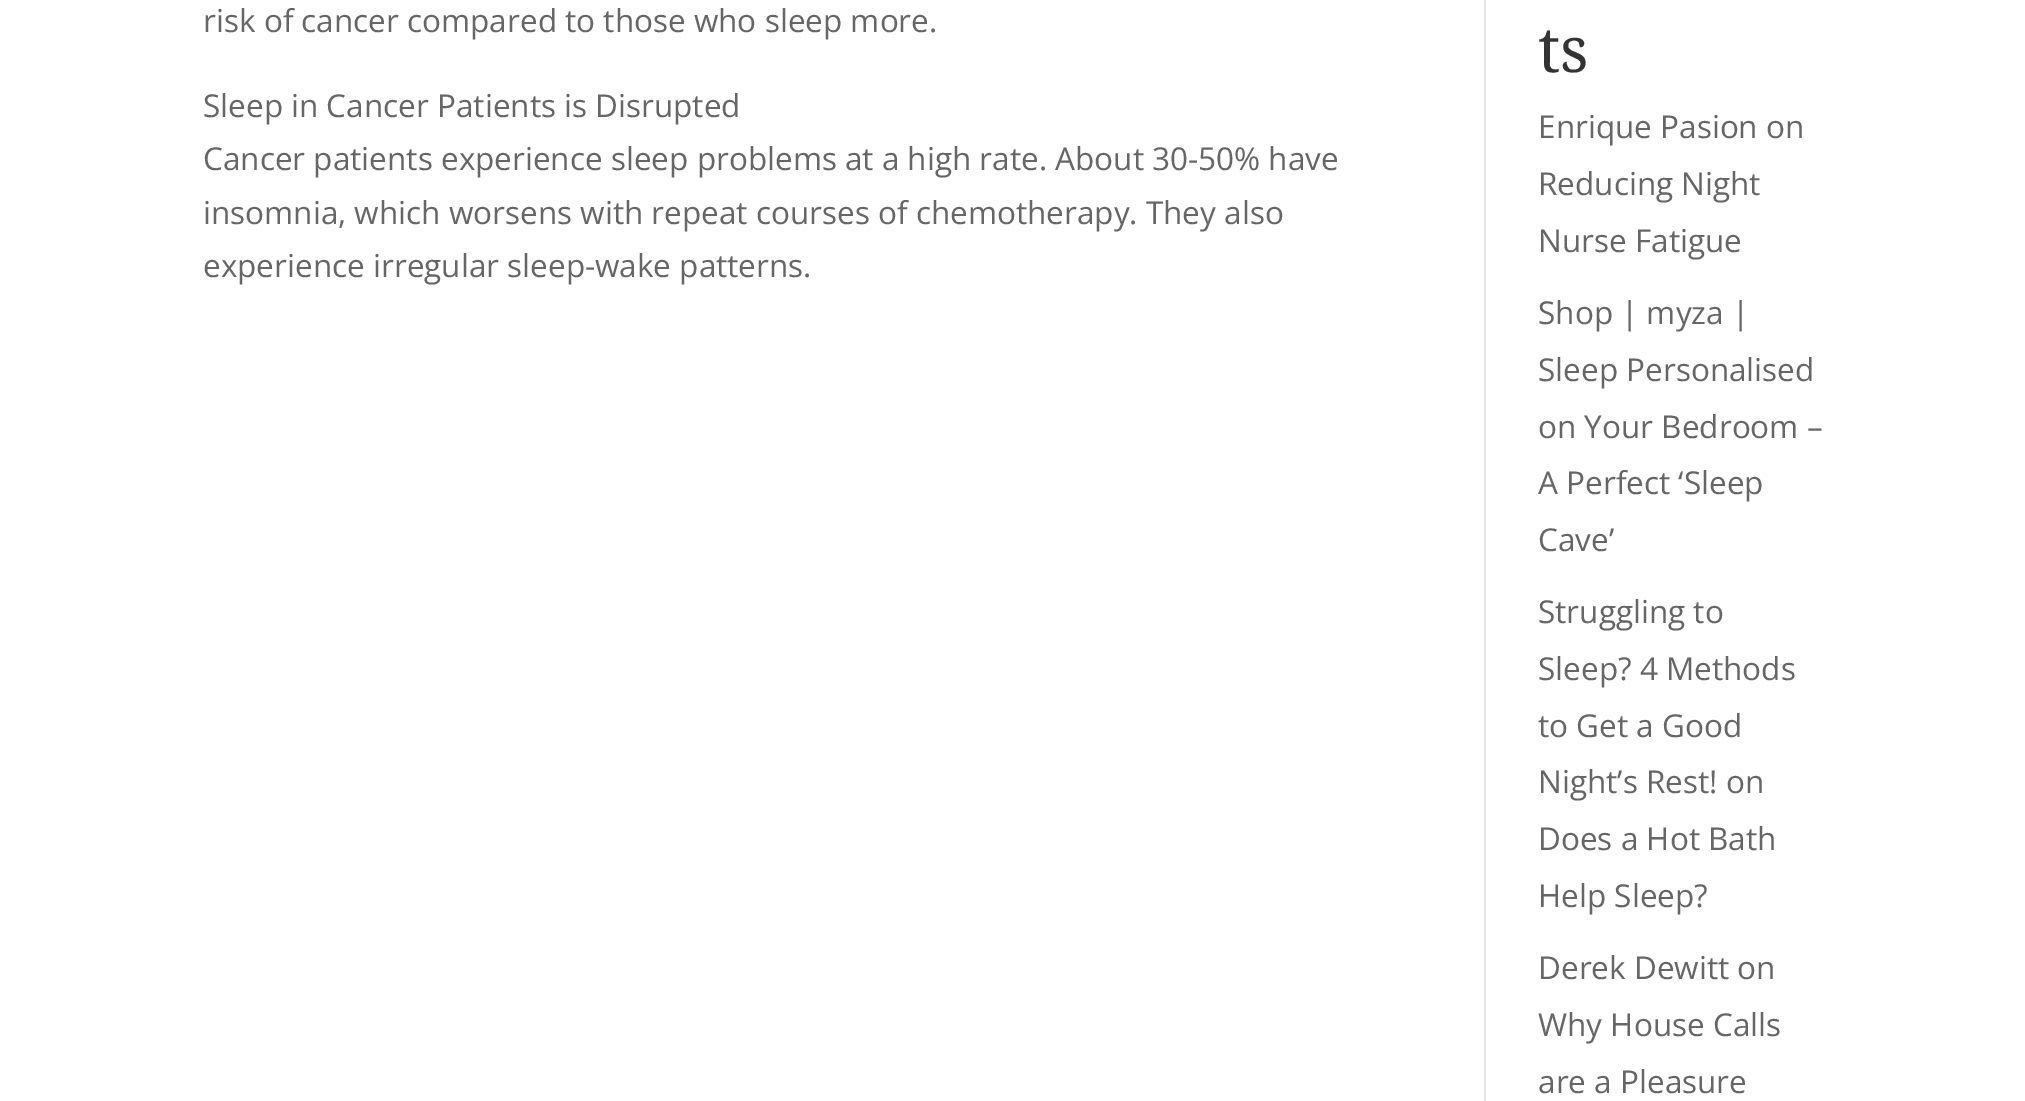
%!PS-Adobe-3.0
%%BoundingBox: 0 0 2025 1101
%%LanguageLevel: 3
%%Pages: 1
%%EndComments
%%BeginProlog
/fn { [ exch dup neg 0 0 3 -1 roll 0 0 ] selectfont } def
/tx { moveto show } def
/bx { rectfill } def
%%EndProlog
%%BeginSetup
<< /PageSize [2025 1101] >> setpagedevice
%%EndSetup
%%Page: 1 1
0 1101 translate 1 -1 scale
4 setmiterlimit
1 setgray
0 0 2025 1101 bx
0.886 setgray
1484 0 2 1101 bx
/OpenSans-Regular 31.5 fn
0.4 setgray
(risk of cancer compared to those who sleep more.) 203 32 tx
(Sleep in Cancer Patients is Disrupted) 203 117 tx
(Cancer patients experience sleep problems at a high rate. About 30-50% have) 203 170 tx
(insomnia, which worsens with repeat courses of chemotherapy. They also) 203 224 tx
(experience irregular sleep-wake patterns.) 203 277 tx
/NotoSerif-Regular 63 fn
0.2 setgray
(ts) 1538 72 tx
/OpenSans-Regular 31.5 fn
0.4 setgray
(Enrique Pasion on) 1538 138 tx
(Reducing Night) 1538 195 tx
(Nurse Fatigue) 1538 252 tx
(Shop | myza |) 1538 324 tx
(Sleep Personalised) 1538 381 tx
(on Your Bedroom –) 1538 438 tx
(A Perfect ‘Sleep) 1538 494 tx
(Cave’) 1538 551 tx
(Struggling to) 1538 623 tx
(Sleep? 4 Methods) 1538 680 tx
(to Get a Good) 1538 737 tx
(Night’s Rest! on) 1538 793 tx
(Does a Hot Bath) 1538 850 tx
(Help Sleep?) 1538 907 tx
(Derek Dewitt on) 1538 979 tx
(Why House Calls) 1538 1036 tx
(are a Pleasure) 1538 1093 tx
showpage
%%EOF
